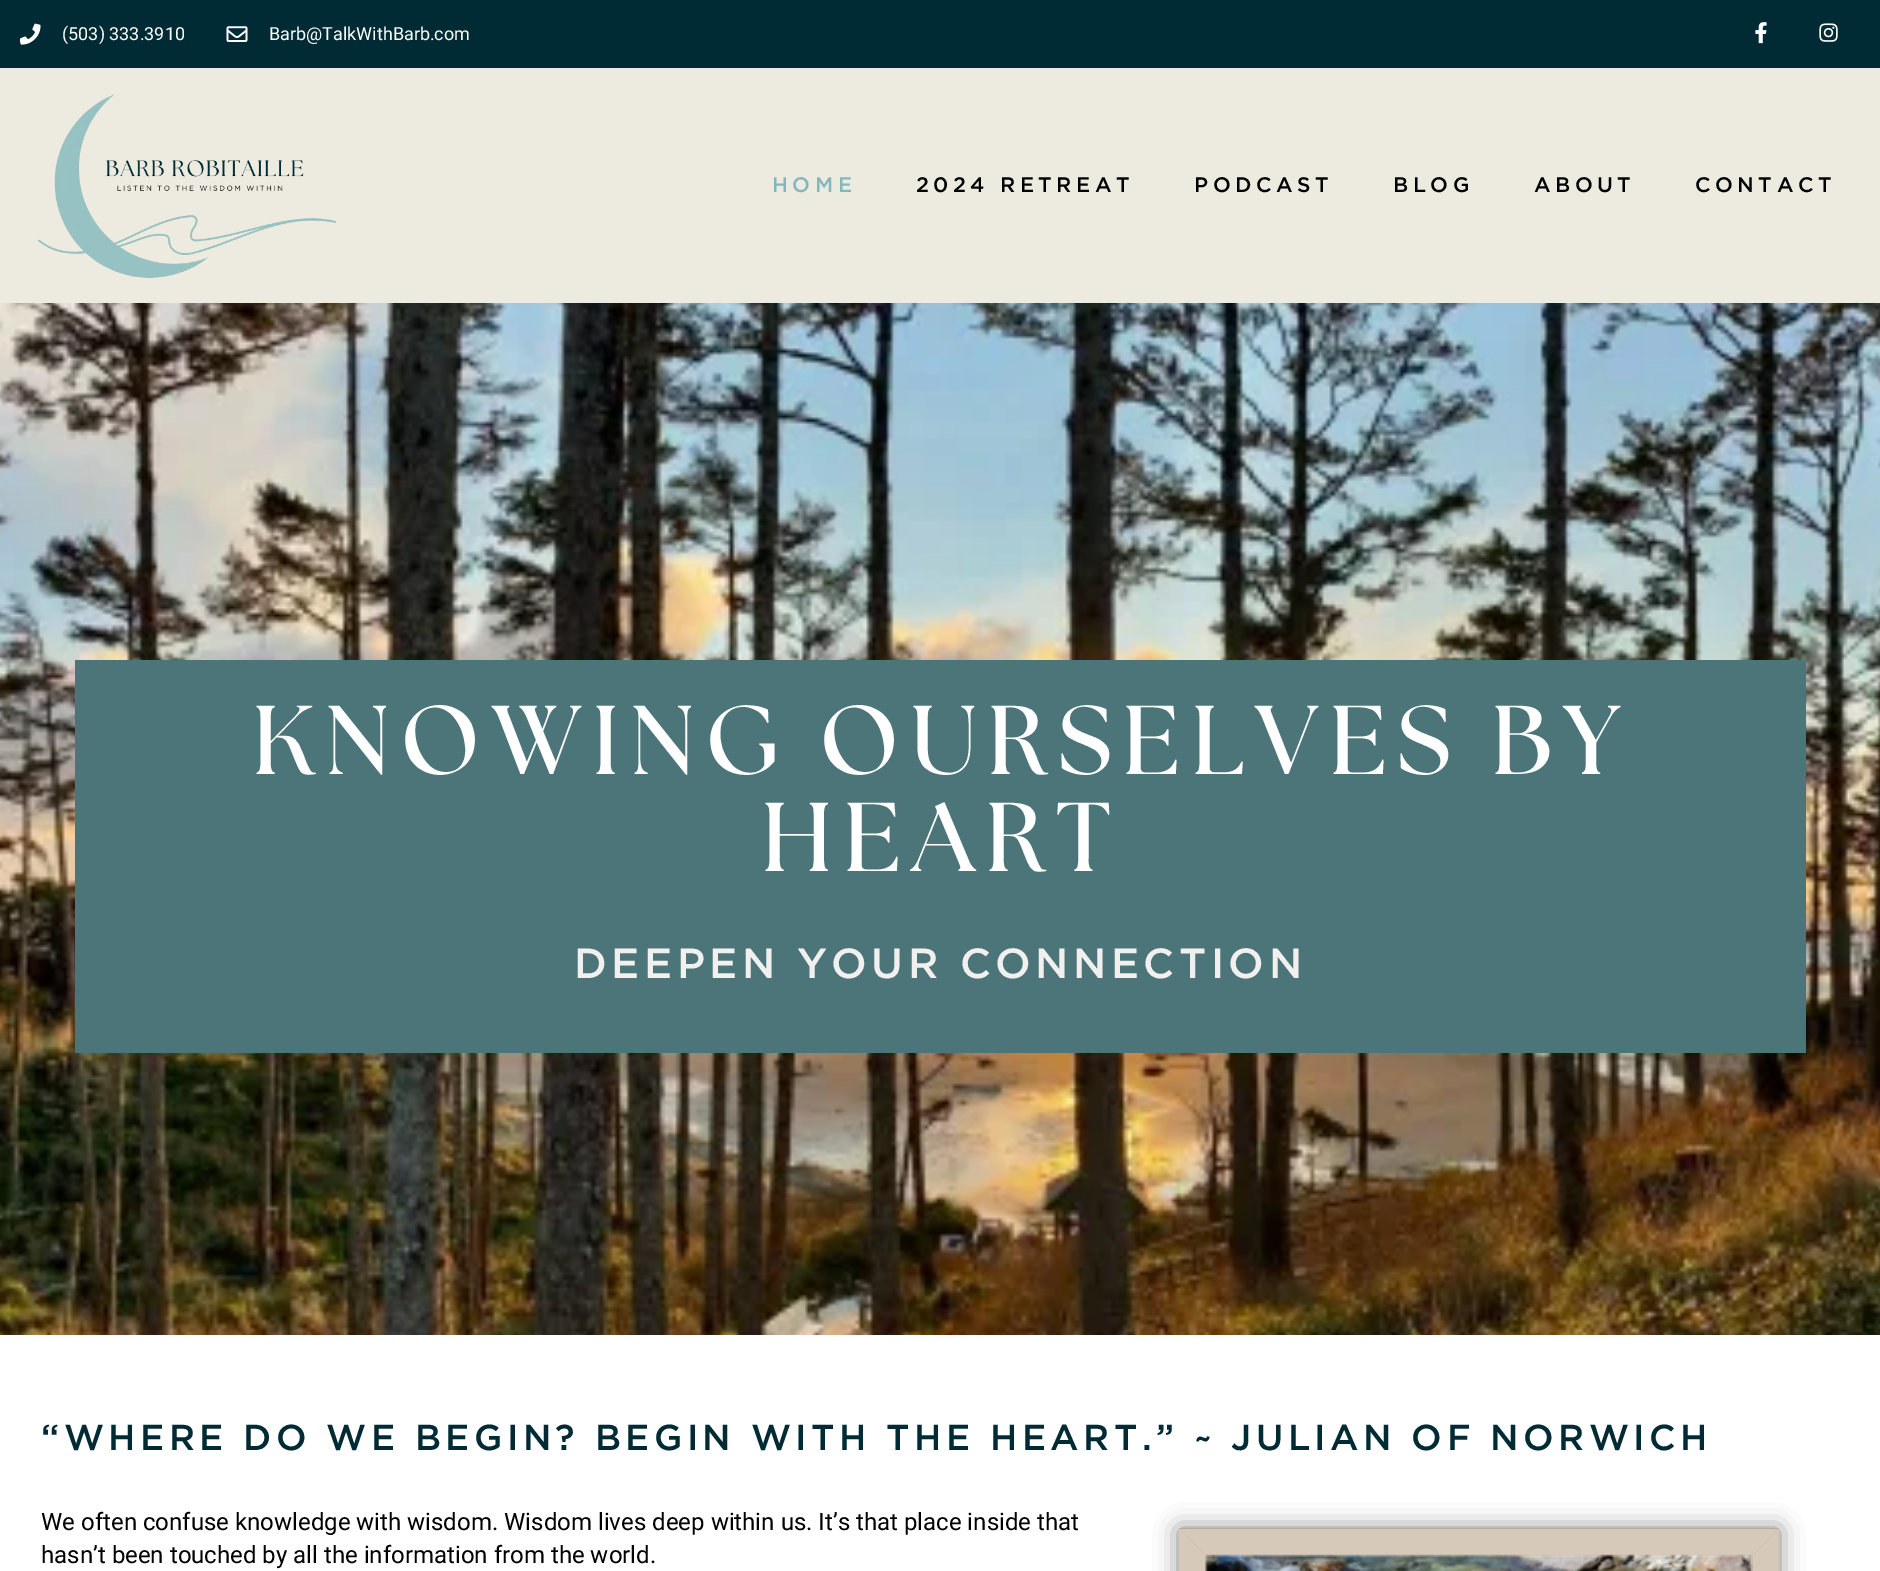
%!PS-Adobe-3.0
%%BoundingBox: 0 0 1880 1571
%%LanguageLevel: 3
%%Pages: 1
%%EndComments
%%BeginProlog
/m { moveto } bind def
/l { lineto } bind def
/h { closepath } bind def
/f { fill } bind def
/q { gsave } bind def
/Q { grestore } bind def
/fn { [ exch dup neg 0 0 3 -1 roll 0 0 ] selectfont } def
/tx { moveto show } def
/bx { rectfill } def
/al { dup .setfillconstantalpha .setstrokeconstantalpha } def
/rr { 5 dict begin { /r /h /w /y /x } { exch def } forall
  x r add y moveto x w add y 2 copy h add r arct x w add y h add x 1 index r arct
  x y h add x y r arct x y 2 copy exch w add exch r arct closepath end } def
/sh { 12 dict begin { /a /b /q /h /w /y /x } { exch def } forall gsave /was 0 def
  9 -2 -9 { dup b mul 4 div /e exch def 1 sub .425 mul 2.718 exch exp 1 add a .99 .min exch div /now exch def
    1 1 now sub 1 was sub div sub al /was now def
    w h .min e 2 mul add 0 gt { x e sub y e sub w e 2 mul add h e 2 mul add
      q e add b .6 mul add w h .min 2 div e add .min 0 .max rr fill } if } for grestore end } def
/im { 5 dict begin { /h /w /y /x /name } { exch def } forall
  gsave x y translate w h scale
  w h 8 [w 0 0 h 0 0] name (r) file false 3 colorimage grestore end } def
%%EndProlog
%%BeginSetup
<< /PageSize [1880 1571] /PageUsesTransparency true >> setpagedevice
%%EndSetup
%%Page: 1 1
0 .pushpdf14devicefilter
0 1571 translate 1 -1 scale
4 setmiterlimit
1 setgray
0 0 1880 1571 bx
0 0.169 0.208 setrgbcolor
0 0 1880 68 bx
(image0.raw) 20 23 21 22 im
/Roboto-Regular 18 fn
1 setgray
(\(503\) 333.3910) 62 40 tx
(image1.raw) 226 26 22 16 im
(Barb@TalkWithBarb.com) 269 40 tx
(image2.raw) 1755 22 12 22 im
(image3.raw) 1819 23 19 19 im
0.929 0.922 0.878 setrgbcolor
0 68 1880 235 bx
(image4.raw) 38 94 299 184 im
/Gotham-Medium 21 fn
0.51 0.718 0.737 setrgbcolor
772 192 m 4.5 0 (HOME) ashow
0 setgray
916 192 m 4.5 0 (2024 RETREAT) ashow
1194 192 m 4.5 0 (PODCAST) ashow
1393 192 m 4.5 0 (BLOG) ashow
1534 192 m 4.5 0 (ABOUT) ashow
1695 192 m 4.5 0 (CONTACT) ashow
(image5.raw) 0 303 1880 1032 im
0.294 0.459 0.475 setrgbcolor
75 660 1731 393 bx
/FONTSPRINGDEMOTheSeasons-Bold 97.5 fn
1 setgray
252 774 m 10.5 0 (KNOWING OURSELVES BY) ashow
761 871 m 10.5 0 (HEART) ashow
/Gotham-Medium 42 fn
0.945 0.941 0.937 setrgbcolor
574 978 m 4.5 0 (DEEPEN YOUR CONNECTION) ashow
/Gotham-Medium 36 fn
0 0.169 0.208 setrgbcolor
41 1450 m 4.5 0 (“WHERE DO WE BEGIN? BEGIN WITH THE HEART.” ~ JULIAN OF NORWICH) ashow
/Roboto-Regular 24 fn
0 setgray
(We often confuse knowledge with wisdom. Wisdom lives deep within us. It’s that place inside that) 41 1530 tx
(hasn’t been touched by all the information from the world.) 41 1563 tx
q
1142 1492 m 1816 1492 l 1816 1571 l 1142 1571 l h 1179 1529 m 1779 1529 l 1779 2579 l 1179 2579 l h eoclip newpath
1179 1529 600 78 0 12 0.5 sh
Q
0.52 al
0.694 0.592 0.471 setrgbcolor
1179 1528 m 1779 1528 l 1752 1556 l 1206 1556 l h f
1779 1528 m 1779 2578 l 1752 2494 l 1752 1556 l h f
1179 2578 m 1179 1528 l 1206 1556 l 1206 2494 l h f
1 al
(image6.raw) 1205 1554 548 17 im
.poppdf14devicefilter showpage
%%EOF
